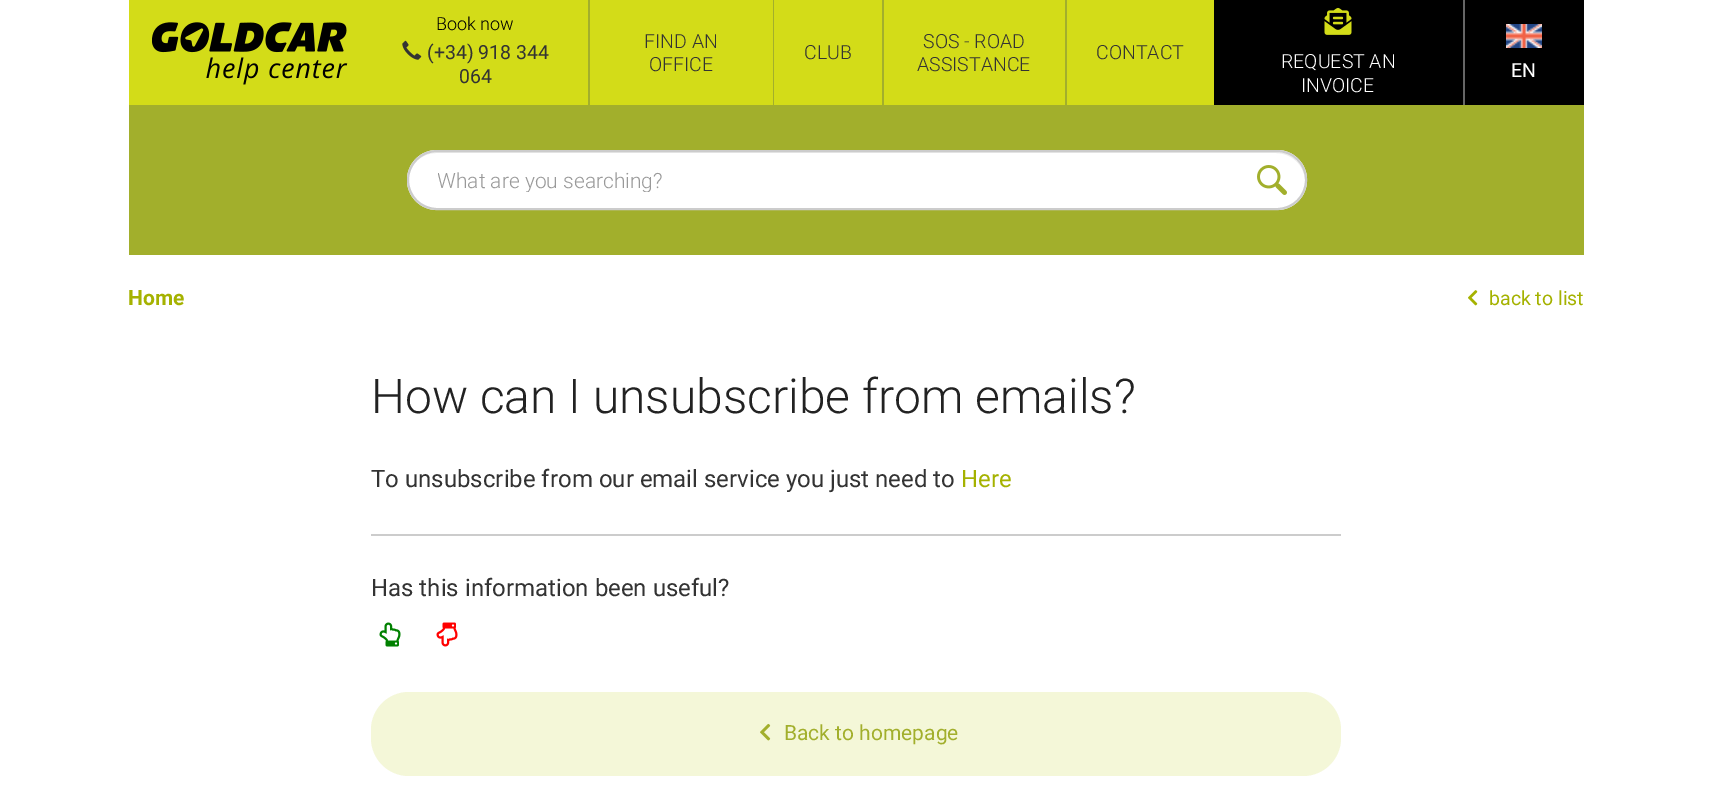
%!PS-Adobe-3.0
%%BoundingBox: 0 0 1711 807
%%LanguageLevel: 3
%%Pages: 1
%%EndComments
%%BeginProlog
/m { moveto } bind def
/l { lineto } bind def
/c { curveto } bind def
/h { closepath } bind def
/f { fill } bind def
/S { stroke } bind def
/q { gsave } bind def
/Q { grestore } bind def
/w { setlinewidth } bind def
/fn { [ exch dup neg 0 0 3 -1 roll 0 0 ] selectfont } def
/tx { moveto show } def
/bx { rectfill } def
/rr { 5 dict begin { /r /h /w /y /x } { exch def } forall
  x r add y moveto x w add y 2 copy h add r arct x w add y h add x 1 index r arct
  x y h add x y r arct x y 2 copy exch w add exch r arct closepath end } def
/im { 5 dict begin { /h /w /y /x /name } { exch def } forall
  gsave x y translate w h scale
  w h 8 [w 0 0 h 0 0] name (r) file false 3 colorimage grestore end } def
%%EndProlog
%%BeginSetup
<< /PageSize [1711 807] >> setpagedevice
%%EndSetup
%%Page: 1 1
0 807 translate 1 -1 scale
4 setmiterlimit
1 setgray
0 0 1711 807 bx
0.827 0.863 0.094 setrgbcolor
129 0 1085 105 bx
(image0.raw) 152 22 196 63 im
0.635 0.686 0.173 setrgbcolor
588 0 2 105 bx
/Roboto-Light 18 fn
0 setgray
(Book now) 436 30 tx
(image1.raw) 402 40 20 20 im
/Roboto-Regular 19.5 fn
0.2 setgray
(\(+34\) 918 344) 427 59 tx
(064) 459 83 tx
0.635 0.686 0.173 setrgbcolor
773 0 1 105 bx
/Roboto-Light 19.5 fn
0.2 setgray
(FIND AN) 644 48 tx
(OFFICE) 649 71 tx
0.635 0.686 0.173 setrgbcolor
882 0 2 105 bx
0.2 setgray
(CLUB) 804 59 tx
0.635 0.686 0.173 setrgbcolor
1065 0 2 105 bx
0.2 setgray
(SOS - ROAD) 923 48 tx
(ASSISTANCE) 917 71 tx
(CONTACT) 1096 59 tx
0 setgray
1214 0 370 105 bx
0.4 setgray
1463 0 2 105 bx
(image2.raw) 1324 7 28 28 im
1 setgray
(REQUEST AN) 1281 68 tx
(INVOICE) 1301 92 tx
(image3.raw) 1506 24 36 24 im
/Roboto-Regular 19.5 fn
(EN) 1511 77 tx
0.635 0.686 0.173 setrgbcolor
129 105 1455 150 bx
1 setgray
407 150 900 60 30 rr f
(image4.raw) 1257 165 30 30 im
0.925 setgray
436 153 m 1276 153 l 1292 153 1305 166 1305 181 c 1305 172 1300 162 1292 157 c 1288 154 1282 152 1276 152 c 436 152 l 421 152 408 165 408 181 c 408 166 421 153 436 153 c h f
0.8 setgray
2 w
408 151 898 58 29 rr S
q
438 168 849 24 rectclip
/Roboto-Light 21 fn
0.6 setgray
(What are you searching?) 437 188 tx
Q
/Roboto-Bold 21 fn
0.647 0.698 0 setrgbcolor
(Home) 128 305 tx
(image5.raw) 1468 290 10 16 im
/Roboto-Regular 19.5 fn
(back to list) 1489 305 tx
/Roboto-Light 48 fn
0.133 setgray
(How can I unsubscribe from emails?) 371 413 tx
/Roboto-Regular 24 fn
0.2 setgray
(To unsubscribe from our email service you just need to) 371 487 tx
0.647 0.698 0 setrgbcolor
(Here) 961 487 tx
0.8 setgray
371 534 970 2 bx
0.2 setgray
(Has this information been useful?) 371 596 tx
(image6.raw) 379 622 22 25 im
(image7.raw) 436 622 22 25 im
0.957 0.969 0.847 setrgbcolor
371 692 970 84 38 rr f
(image8.raw) 760 723 11 18 im
/Roboto-Regular 21 fn
0.635 0.686 0.173 setrgbcolor
(Back to homepage) 784 740 tx
showpage
%%EOF
